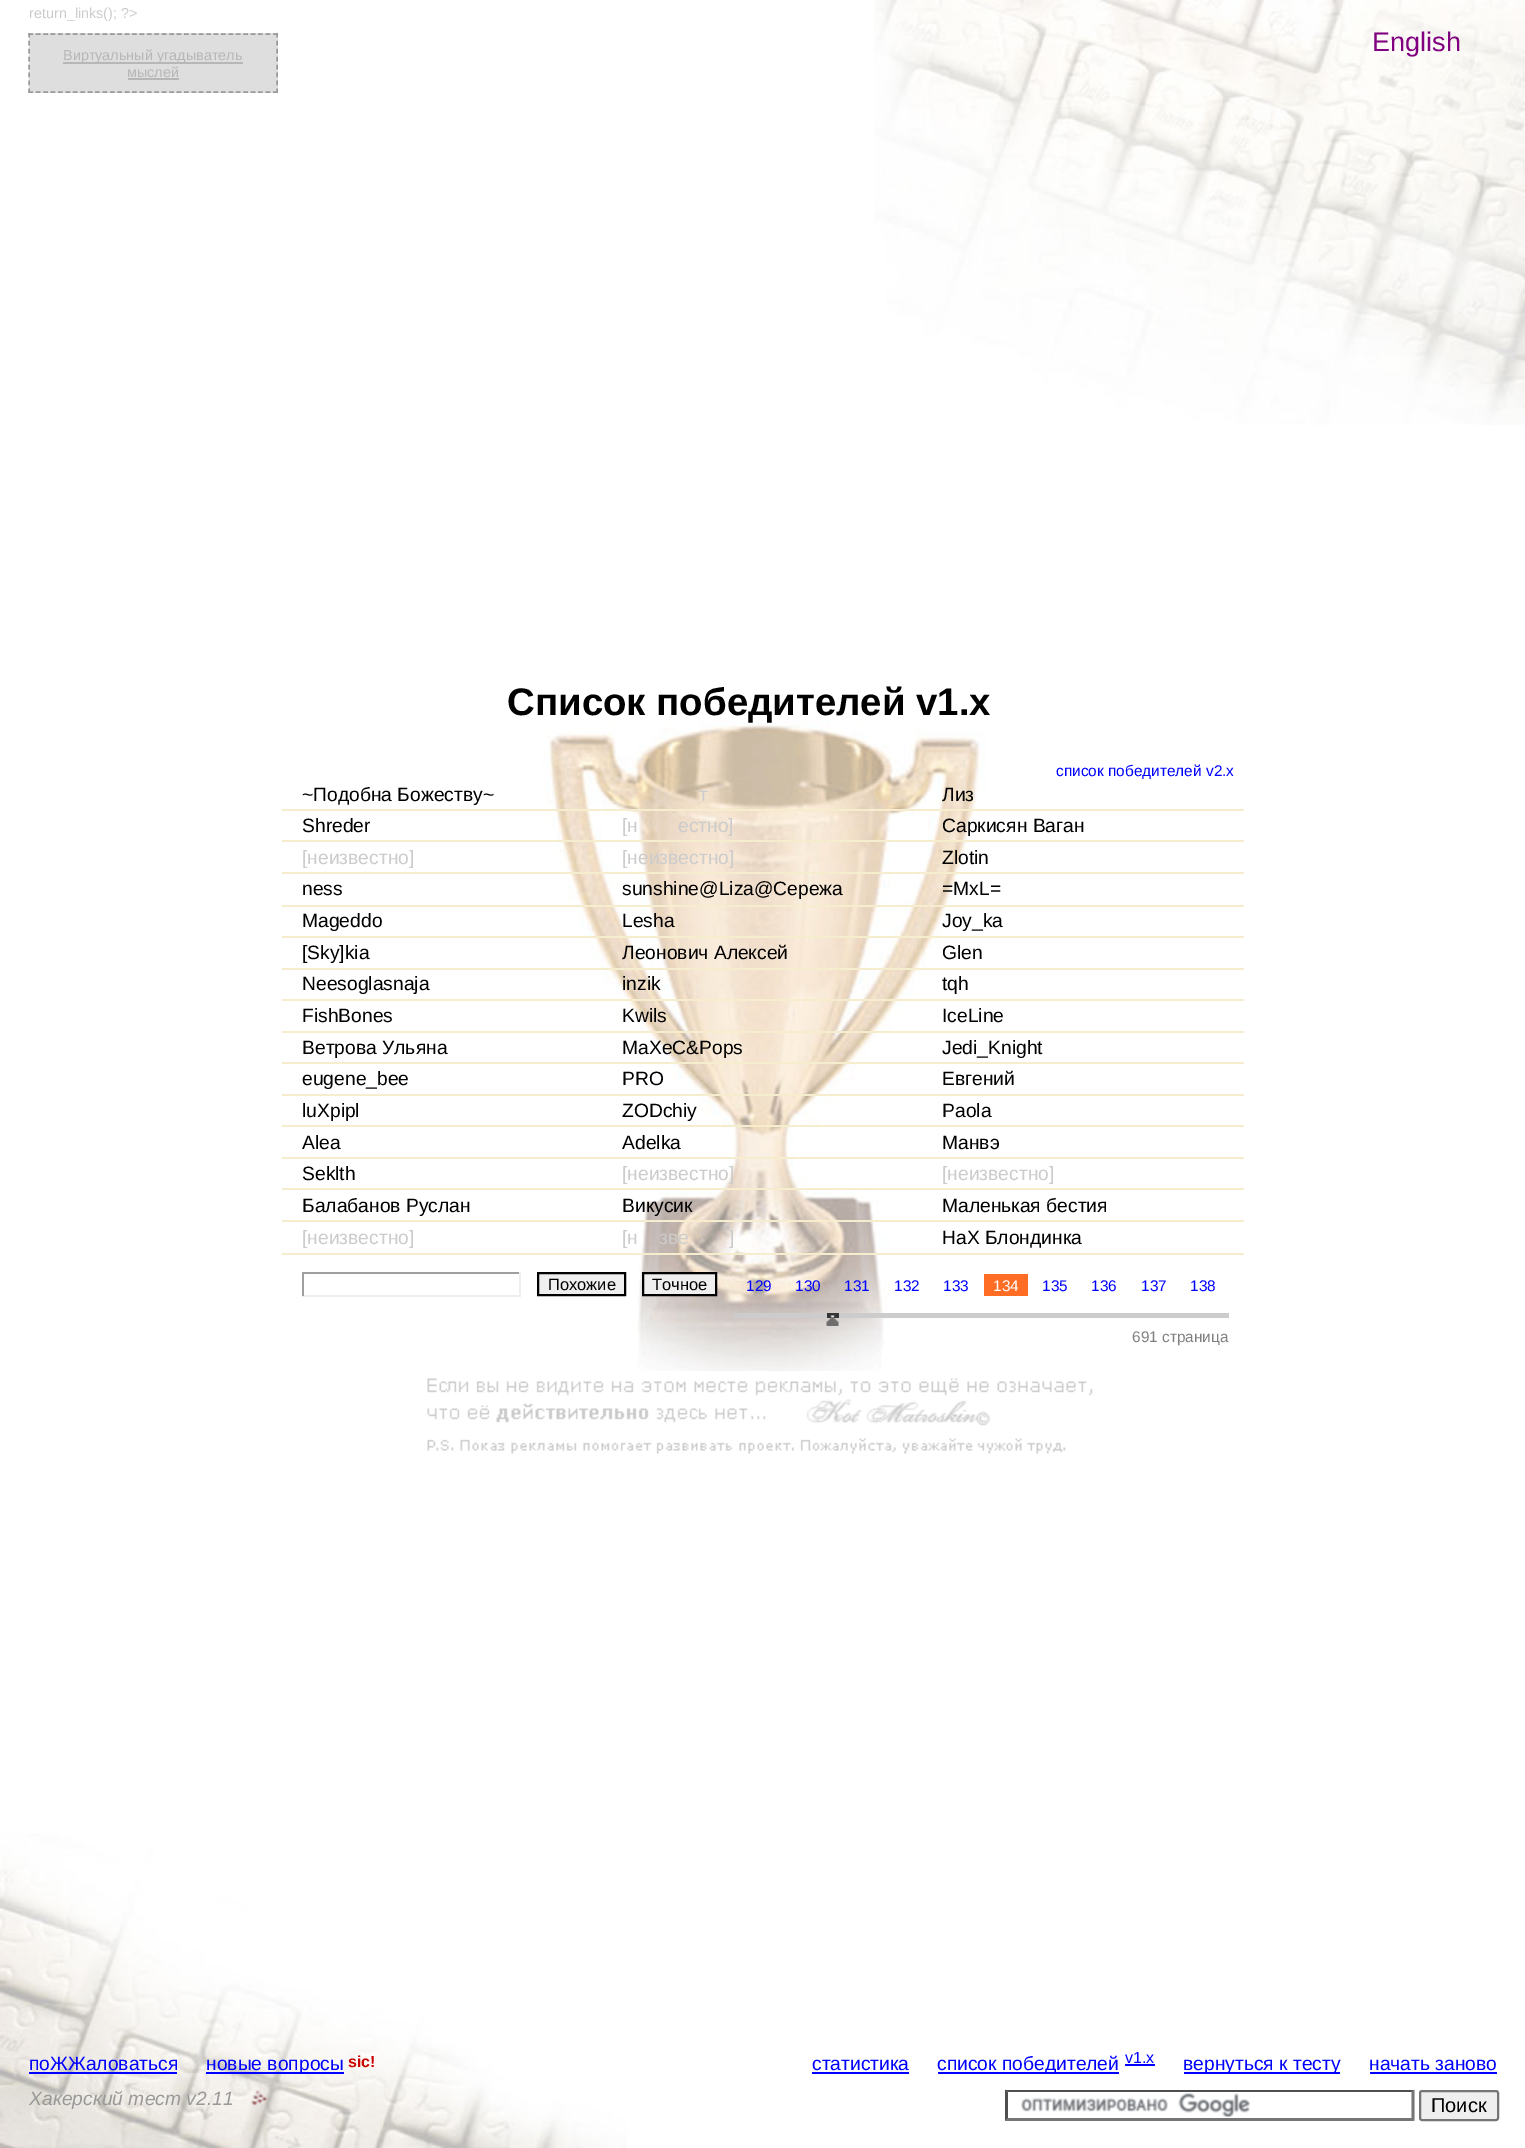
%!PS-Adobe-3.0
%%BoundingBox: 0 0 1525 2148
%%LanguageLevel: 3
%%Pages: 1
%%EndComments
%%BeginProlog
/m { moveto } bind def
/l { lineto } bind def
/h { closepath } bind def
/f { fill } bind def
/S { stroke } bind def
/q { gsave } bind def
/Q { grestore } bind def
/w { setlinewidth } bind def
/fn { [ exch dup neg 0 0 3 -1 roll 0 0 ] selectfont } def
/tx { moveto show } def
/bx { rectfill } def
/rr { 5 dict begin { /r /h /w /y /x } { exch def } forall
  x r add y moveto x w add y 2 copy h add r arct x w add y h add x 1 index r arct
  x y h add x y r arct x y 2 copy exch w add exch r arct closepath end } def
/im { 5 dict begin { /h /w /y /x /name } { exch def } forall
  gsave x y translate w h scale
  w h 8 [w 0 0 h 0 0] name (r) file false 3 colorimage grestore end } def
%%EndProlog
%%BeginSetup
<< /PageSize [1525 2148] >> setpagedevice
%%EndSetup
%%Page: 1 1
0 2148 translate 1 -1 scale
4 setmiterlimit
1 setgray
0 0 1525 2148 bx
/LiberationSans-Regular 14.4 fn
0.8 setgray
(return_links\(\); ?>) 29 18 tx
0.871 setgray
29 33 249 60 bx
0.604 setgray
1.5 w
[4.5 2.91] 0 setdash
28.5 34 m 277.5 34 l S
[4.5 3.44] 0 setdash
277 33 m 277 93 l S
[4.5 2.91] 0 setdash
28.5 92 m 277.5 92 l S
[4.5 3.44] 0 setdash
29 33 m 29 93 l S
0.718 setgray
63 62 180 2 bx
(Виртуальный угадыватель) 63 60 tx
(мыслей) 127 77 tx
128 78 51 2 bx
(image1.raw) 874 0 651 425 im
/LiberationSans-Regular 27 fn
0.502 0 0.502 setrgbcolor
(English) 1372 51 tx
(image0.raw) 0 1833 627 219 im
(image2.raw) 543 720 444 651 im
/LiberationSans-Bold 38.4 fn
0 setgray
(Список победителей v1.x) 507 715 tx
/LiberationSans-Regular 15.4 fn
0 0 1 setrgbcolor
(список победителей v2.x) 1056 776 tx
/LiberationSans-Regular 19.25 fn
0 setgray
(~Подобна Божеству~) 302 801 tx
0.8 setgray
(т) 699 801 tx
0.961 0.929 0.808 setrgbcolor
282 809 962 2 bx
0 setgray
(Лиз) 942 801 tx
(Shreder) 302 832 tx
0.8 setgray
([н) 622 832 tx
(естно]) 678 832 tx
0.961 0.929 0.808 setrgbcolor
282 840 962 2 bx
0 setgray
(Саркисян Ваган) 942 832 tx
0.8 setgray
([неизвестно]) 302 864 tx
([неизвестно]) 622 864 tx
0.961 0.929 0.808 setrgbcolor
282 872 962 2 bx
0 setgray
(Zlotin) 942 864 tx
(ness) 302 895 tx
(sunshine@Liza@Сережа) 622 895 tx
0.961 0.929 0.808 setrgbcolor
282 905 962 2 bx
0 setgray
(=MxL=) 942 895 tx
(Mageddo) 302 927 tx
(Lesha) 622 927 tx
0.961 0.929 0.808 setrgbcolor
282 936 962 2 bx
0 setgray
(Joy_ka) 942 927 tx
([Sky]kia) 302 959 tx
(Леонович Алексей) 622 959 tx
0.961 0.929 0.808 setrgbcolor
282 968 962 2 bx
0 setgray
(Glen) 942 959 tx
(Neesoglasnaja) 302 990 tx
(inzik) 622 990 tx
0.961 0.929 0.808 setrgbcolor
282 999 962 2 bx
0 setgray
(tqh) 942 990 tx
(FishBones) 302 1022 tx
(Kwils) 622 1022 tx
0.961 0.929 0.808 setrgbcolor
282 1031 962 2 bx
0 setgray
(IceLine) 942 1022 tx
(Ветрова Ульяна) 302 1054 tx
(MaXeC&Pops) 622 1054 tx
0.961 0.929 0.808 setrgbcolor
282 1062 962 2 bx
0 setgray
(Jedi_Knight) 942 1054 tx
(eugene_bee) 302 1085 tx
(PRO) 622 1085 tx
0.961 0.929 0.808 setrgbcolor
282 1094 962 2 bx
0 setgray
(Евгений) 942 1085 tx
(luXpipl) 302 1117 tx
(ZODchiy) 622 1117 tx
0.961 0.929 0.808 setrgbcolor
282 1125 962 2 bx
0 setgray
(Paola) 942 1117 tx
(Alea) 302 1149 tx
(Adelka) 622 1149 tx
0.961 0.929 0.808 setrgbcolor
282 1157 962 2 bx
0 setgray
(Манвэ) 942 1149 tx
(Seklth) 302 1180 tx
0.8 setgray
([неизвестно]) 622 1180 tx
0.961 0.929 0.808 setrgbcolor
282 1188 962 2 bx
0.8 setgray
([неизвестно]) 942 1180 tx
0 setgray
(Балабанов Руслан) 302 1212 tx
(Викусик) 622 1212 tx
0.961 0.929 0.808 setrgbcolor
282 1220 962 2 bx
0 setgray
(Маленькая бестия) 942 1212 tx
0.8 setgray
([неизвестно]) 302 1244 tx
([н) 622 1244 tx
(зве) 659 1244 tx
(]) 729 1244 tx
0.961 0.929 0.808 setrgbcolor
282 1253 962 2 bx
0 setgray
(НаХ Блондинка) 942 1244 tx
0.624 setgray
302 1272 219 2 bx
0.933 setgray
519 1272 2 24 bx
302 1295 219 2 bx
0.624 setgray
302 1272 2 24 bx
0.937 setgray
538 1273 m 625 1273 l 625 1295 l 538 1295 l h q f Q
0 setgray
2 w
[] 0 setdash
S
/LiberationSans-Regular 16.5 fn
(Похожие) 548 1290 tx
0.937 setgray
643 1273 m 716 1273 l 716 1295 l 643 1295 l h q f Q
0 setgray
S
(Точное) 652 1290 tx
/LiberationSans-Regular 15.4 fn
0 0 1 setrgbcolor
(129) 746 1291 tx
(130) 795 1291 tx
(131) 844 1291 tx
(132) 894 1291 tx
(133) 943 1291 tx
1 0.424 0.141 setrgbcolor
984 1274 44 22 bx
1 setgray
(134) 993 1291 tx
0 0 1 setrgbcolor
(135) 1042 1291 tx
(136) 1091 1291 tx
(137) 1141 1291 tx
(138) 1190 1291 tx
0.8 setgray
734 1313 495 5 bx
0.212 setgray
827 1313 12 5 bx
(image3.raw) 826 1315 13 11 im
0.502 setgray
(691 страница) 1132 1342 tx
(image4.raw) 427 1371 666 83 im
(image5.raw) 0 2052 627 96 im
/LiberationSans-Regular 19.25 fn
0 0 1 setrgbcolor
(поЖЖаловаться) 29 2070 tx
29 2072 148 2 bx
206 2072 138 2 bx
(новые вопросы) 206 2070 tx
/LiberationSans-Bold 16 fn
0.8 0 0 setrgbcolor
(sic!) 348 2067 tx
/LiberationSans-Regular 19.25 fn
0 0 1 setrgbcolor
(статистика) 812 2070 tx
812 2072 97 2 bx
938 2072 181 2 bx
(список победителей) 937 2070 tx
/LiberationSans-Regular 16 fn
(v1.x) 1125 2063 tx
1125 2064 30 2 bx
1184 2072 156 2 bx
/LiberationSans-Regular 19.25 fn
(вернуться к тесту) 1183 2070 tx
(начать заново) 1369 2070 tx
1370 2072 127 2 bx
/LiberationSans-Italic 19.25 fn
0.6 setgray
(Хакерский тест v2.11) 29 2105 tx
(image6.raw) 251 2090 17 16 im
(image7.raw) 1021 2093 229 24 im
0.31 setgray
1005 2090 m 1414 2090 l 1412 2092 l 1008 2092 l h f
0.463 setgray
1414.5 2089.5 m 1414.5 2121 l 1411.5 2118 l 1411.5 2092.5 l h f
1414 2121 m 1005 2121 l 1008 2118 l 1412 2118 l h f
0.31 setgray
1005 2121 m 1005 2089.5 l 1008 2092.5 l 1008 2118 l h f
0.937 setgray
1420 2091 78 29 2 rr q f Q
0.463 setgray
S
/LiberationSans-Regular 20 fn
0 setgray
(Поиск) 1431 2112 tx
showpage
%%EOF
